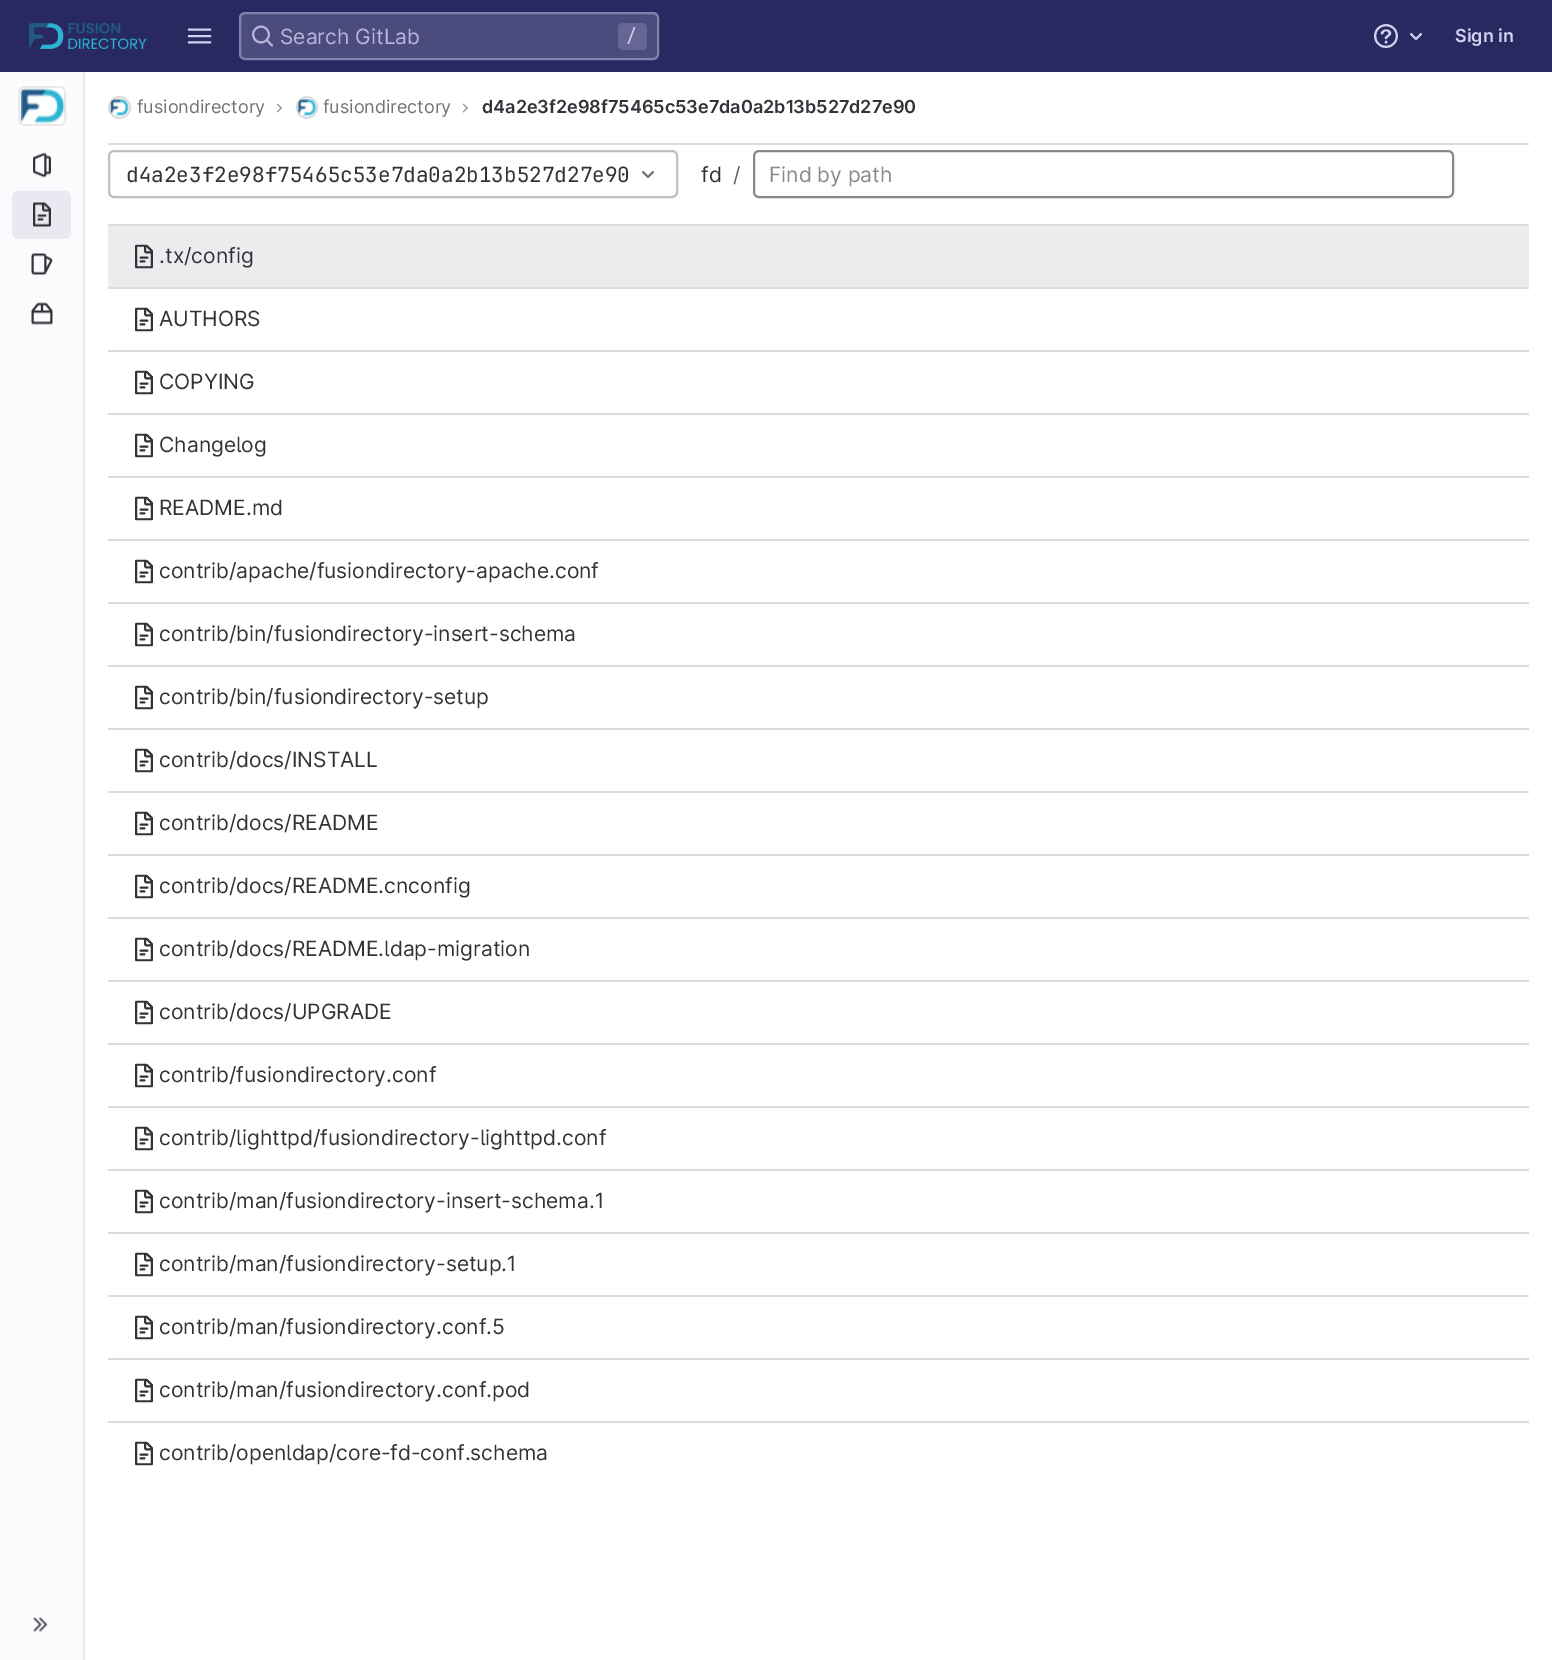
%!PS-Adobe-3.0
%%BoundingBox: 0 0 1552 1660
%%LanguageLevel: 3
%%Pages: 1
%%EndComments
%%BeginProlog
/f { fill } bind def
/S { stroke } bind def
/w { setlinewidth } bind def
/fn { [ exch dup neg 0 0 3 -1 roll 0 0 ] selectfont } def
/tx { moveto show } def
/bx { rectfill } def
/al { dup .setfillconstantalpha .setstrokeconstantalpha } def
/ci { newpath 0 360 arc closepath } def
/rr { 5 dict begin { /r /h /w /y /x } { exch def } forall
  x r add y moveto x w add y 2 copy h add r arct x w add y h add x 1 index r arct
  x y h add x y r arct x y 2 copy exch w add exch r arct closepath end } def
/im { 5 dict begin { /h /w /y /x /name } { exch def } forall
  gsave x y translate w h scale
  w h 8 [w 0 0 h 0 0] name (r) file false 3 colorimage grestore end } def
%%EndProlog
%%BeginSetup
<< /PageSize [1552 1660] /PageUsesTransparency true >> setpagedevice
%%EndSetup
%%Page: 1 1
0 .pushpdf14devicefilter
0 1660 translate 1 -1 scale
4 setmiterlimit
1 setgray
0 0 1552 1660 bx
0.161 0.161 0.38 setrgbcolor
0 0 1552 72 bx
(image0.raw) 29 23 118 27 im
(image1.raw) 187 28 25 16 im
0.294 0.294 0.494 setrgbcolor
239 12 420 48 6 rr f
0.4 al
0.82 0.82 0.941 setrgbcolor
2 w
240 13 418 46 5 rr S
1 al
(image2.raw) 252 25 21 22 im
/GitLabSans-Regular 21 fn
0.714 0.714 0.851 setrgbcolor
(Search GitLab) 280 44 tx
0.4 0.4 0.584 setrgbcolor
618 23 29 27 5 rr f
/JetBrainsMono-Regular 18 fn
0.82 0.82 0.941 setrgbcolor
(/) 626 42 tx
(image3.raw) 1374 24 24 24 im
(image4.raw) 1410 33 12 8 im
/GitLabSans-SemiBold 18 fn
(Sign in) 1455 42 tx
0.984 0.98 0.992 setrgbcolor
0 72 83 1588 bx
0.914 setgray
83 72 2 1588 bx
1 setgray
18 81 48 48 6 rr f
0.914 setgray
19 87 46 38 5 rr S
(image5.raw) 20 88 45 36 im
(image6.raw) 33 152 18 26 im
0.918 0.914 0.945 setrgbcolor
12 191 59 48 6 rr f
(image7.raw) 33 202 18 25 im
(image8.raw) 31 253 22 22 im
(image9.raw) 31 302 22 23 im
(image10.raw) 33 1617 15 15 im
0.863 0.863 0.871 setrgbcolor
108 143 1421 2 bx
119.5 107.5 10.5 ci S
(image11.raw) 110 98 19 18 im
/GitLabSans-Regular 18 fn
0.451 0.447 0.471 setrgbcolor
(fusiondirectory) 137 113 tx
(image12.raw) 276 103 6 10 im
0.863 0.863 0.871 setrgbcolor
297 97 20 21 10 rr S
(image13.raw) 297 98 20 18 im
0.451 0.447 0.471 setrgbcolor
(fusiondirectory) 323 113 tx
(image12.raw) 462 103 6 10 im
/GitLabSans-SemiBold 18 fn
0.2 0.196 0.22 setrgbcolor
(d4a2e3f2e98f75465c53e7da0a2b13b527d27e90) 482 113 tx
0.749 0.749 0.765 setrgbcolor
109 151 568 46 5 rr S
/JetBrainsMono-Regular 21 fn
0.2 0.196 0.22 setrgbcolor
(d4a2e3f2e98f75465c53e7da0a2b13b527d27e90) 126 182 tx
(image14.raw) 642 171 12 8 im
/GitLabSans-Regular 21 fn
(fd) 701 182 tx
0.384 0.38 0.408 setrgbcolor
(/) 733 182 tx
0.537 0.533 0.553 setrgbcolor
754 151 699 46 5 rr S
(Find by path) 769 182 tx
0.925 0.925 0.937 setrgbcolor
108 226 1421 61 bx
0.863 0.863 0.871 setrgbcolor
108 224 1421 2 bx
(image15.raw) 135 244 18 25 im
0.2 0.196 0.22 setrgbcolor
(.tx/config) 159 263 tx
0.863 0.863 0.871 setrgbcolor
108 287 1421 2 bx
(image16.raw) 135 307 18 25 im
0.2 0.196 0.22 setrgbcolor
(AUTHORS) 159 326 tx
0.863 0.863 0.871 setrgbcolor
108 350 1421 2 bx
(image16.raw) 135 370 18 25 im
0.2 0.196 0.22 setrgbcolor
(COPYING) 159 389 tx
0.863 0.863 0.871 setrgbcolor
108 413 1421 2 bx
(image16.raw) 135 433 18 25 im
0.2 0.196 0.22 setrgbcolor
(Changelog) 159 452 tx
0.863 0.863 0.871 setrgbcolor
108 476 1421 2 bx
(image16.raw) 135 496 18 25 im
0.2 0.196 0.22 setrgbcolor
(README.md) 159 515 tx
0.863 0.863 0.871 setrgbcolor
108 539 1421 2 bx
(image16.raw) 135 559 18 25 im
0.2 0.196 0.22 setrgbcolor
(contrib/apache/fusiondirectory-apache.conf) 159 578 tx
0.863 0.863 0.871 setrgbcolor
108 602 1421 2 bx
(image16.raw) 135 622 18 25 im
0.2 0.196 0.22 setrgbcolor
(contrib/bin/fusiondirectory-insert-schema) 159 641 tx
0.863 0.863 0.871 setrgbcolor
108 665 1421 2 bx
(image16.raw) 135 685 18 25 im
0.2 0.196 0.22 setrgbcolor
(contrib/bin/fusiondirectory-setup) 159 704 tx
0.863 0.863 0.871 setrgbcolor
108 728 1421 2 bx
(image16.raw) 135 748 18 25 im
0.2 0.196 0.22 setrgbcolor
(contrib/docs/INSTALL) 159 767 tx
0.863 0.863 0.871 setrgbcolor
108 791 1421 2 bx
(image16.raw) 135 811 18 25 im
0.2 0.196 0.22 setrgbcolor
(contrib/docs/README) 159 830 tx
0.863 0.863 0.871 setrgbcolor
108 854 1421 2 bx
(image16.raw) 135 874 18 25 im
0.2 0.196 0.22 setrgbcolor
(contrib/docs/README.cnconfig) 159 893 tx
0.863 0.863 0.871 setrgbcolor
108 917 1421 2 bx
(image16.raw) 135 937 18 25 im
0.2 0.196 0.22 setrgbcolor
(contrib/docs/README.ldap-migration) 159 956 tx
0.863 0.863 0.871 setrgbcolor
108 980 1421 2 bx
(image16.raw) 135 1000 18 25 im
0.2 0.196 0.22 setrgbcolor
(contrib/docs/UPGRADE) 159 1019 tx
0.863 0.863 0.871 setrgbcolor
108 1043 1421 2 bx
(image16.raw) 135 1063 18 25 im
0.2 0.196 0.22 setrgbcolor
(contrib/fusiondirectory.conf) 159 1082 tx
0.863 0.863 0.871 setrgbcolor
108 1106 1421 2 bx
(image16.raw) 135 1126 18 25 im
0.2 0.196 0.22 setrgbcolor
(contrib/lighttpd/fusiondirectory-lighttpd.conf) 159 1145 tx
0.863 0.863 0.871 setrgbcolor
108 1169 1421 2 bx
(image16.raw) 135 1189 18 25 im
0.2 0.196 0.22 setrgbcolor
(contrib/man/fusiondirectory-insert-schema.1) 159 1208 tx
0.863 0.863 0.871 setrgbcolor
108 1232 1421 2 bx
(image16.raw) 135 1252 18 25 im
0.2 0.196 0.22 setrgbcolor
(contrib/man/fusiondirectory-setup.1) 159 1271 tx
0.863 0.863 0.871 setrgbcolor
108 1295 1421 2 bx
(image16.raw) 135 1315 18 25 im
0.2 0.196 0.22 setrgbcolor
(contrib/man/fusiondirectory.conf.5) 159 1334 tx
0.863 0.863 0.871 setrgbcolor
108 1358 1421 2 bx
(image16.raw) 135 1378 18 25 im
0.2 0.196 0.22 setrgbcolor
(contrib/man/fusiondirectory.conf.pod) 159 1397 tx
0.863 0.863 0.871 setrgbcolor
108 1421 1421 2 bx
(image16.raw) 135 1441 18 25 im
0.2 0.196 0.22 setrgbcolor
(contrib/openldap/core-fd-conf.schema) 159 1460 tx
.poppdf14devicefilter showpage
%%EOF
